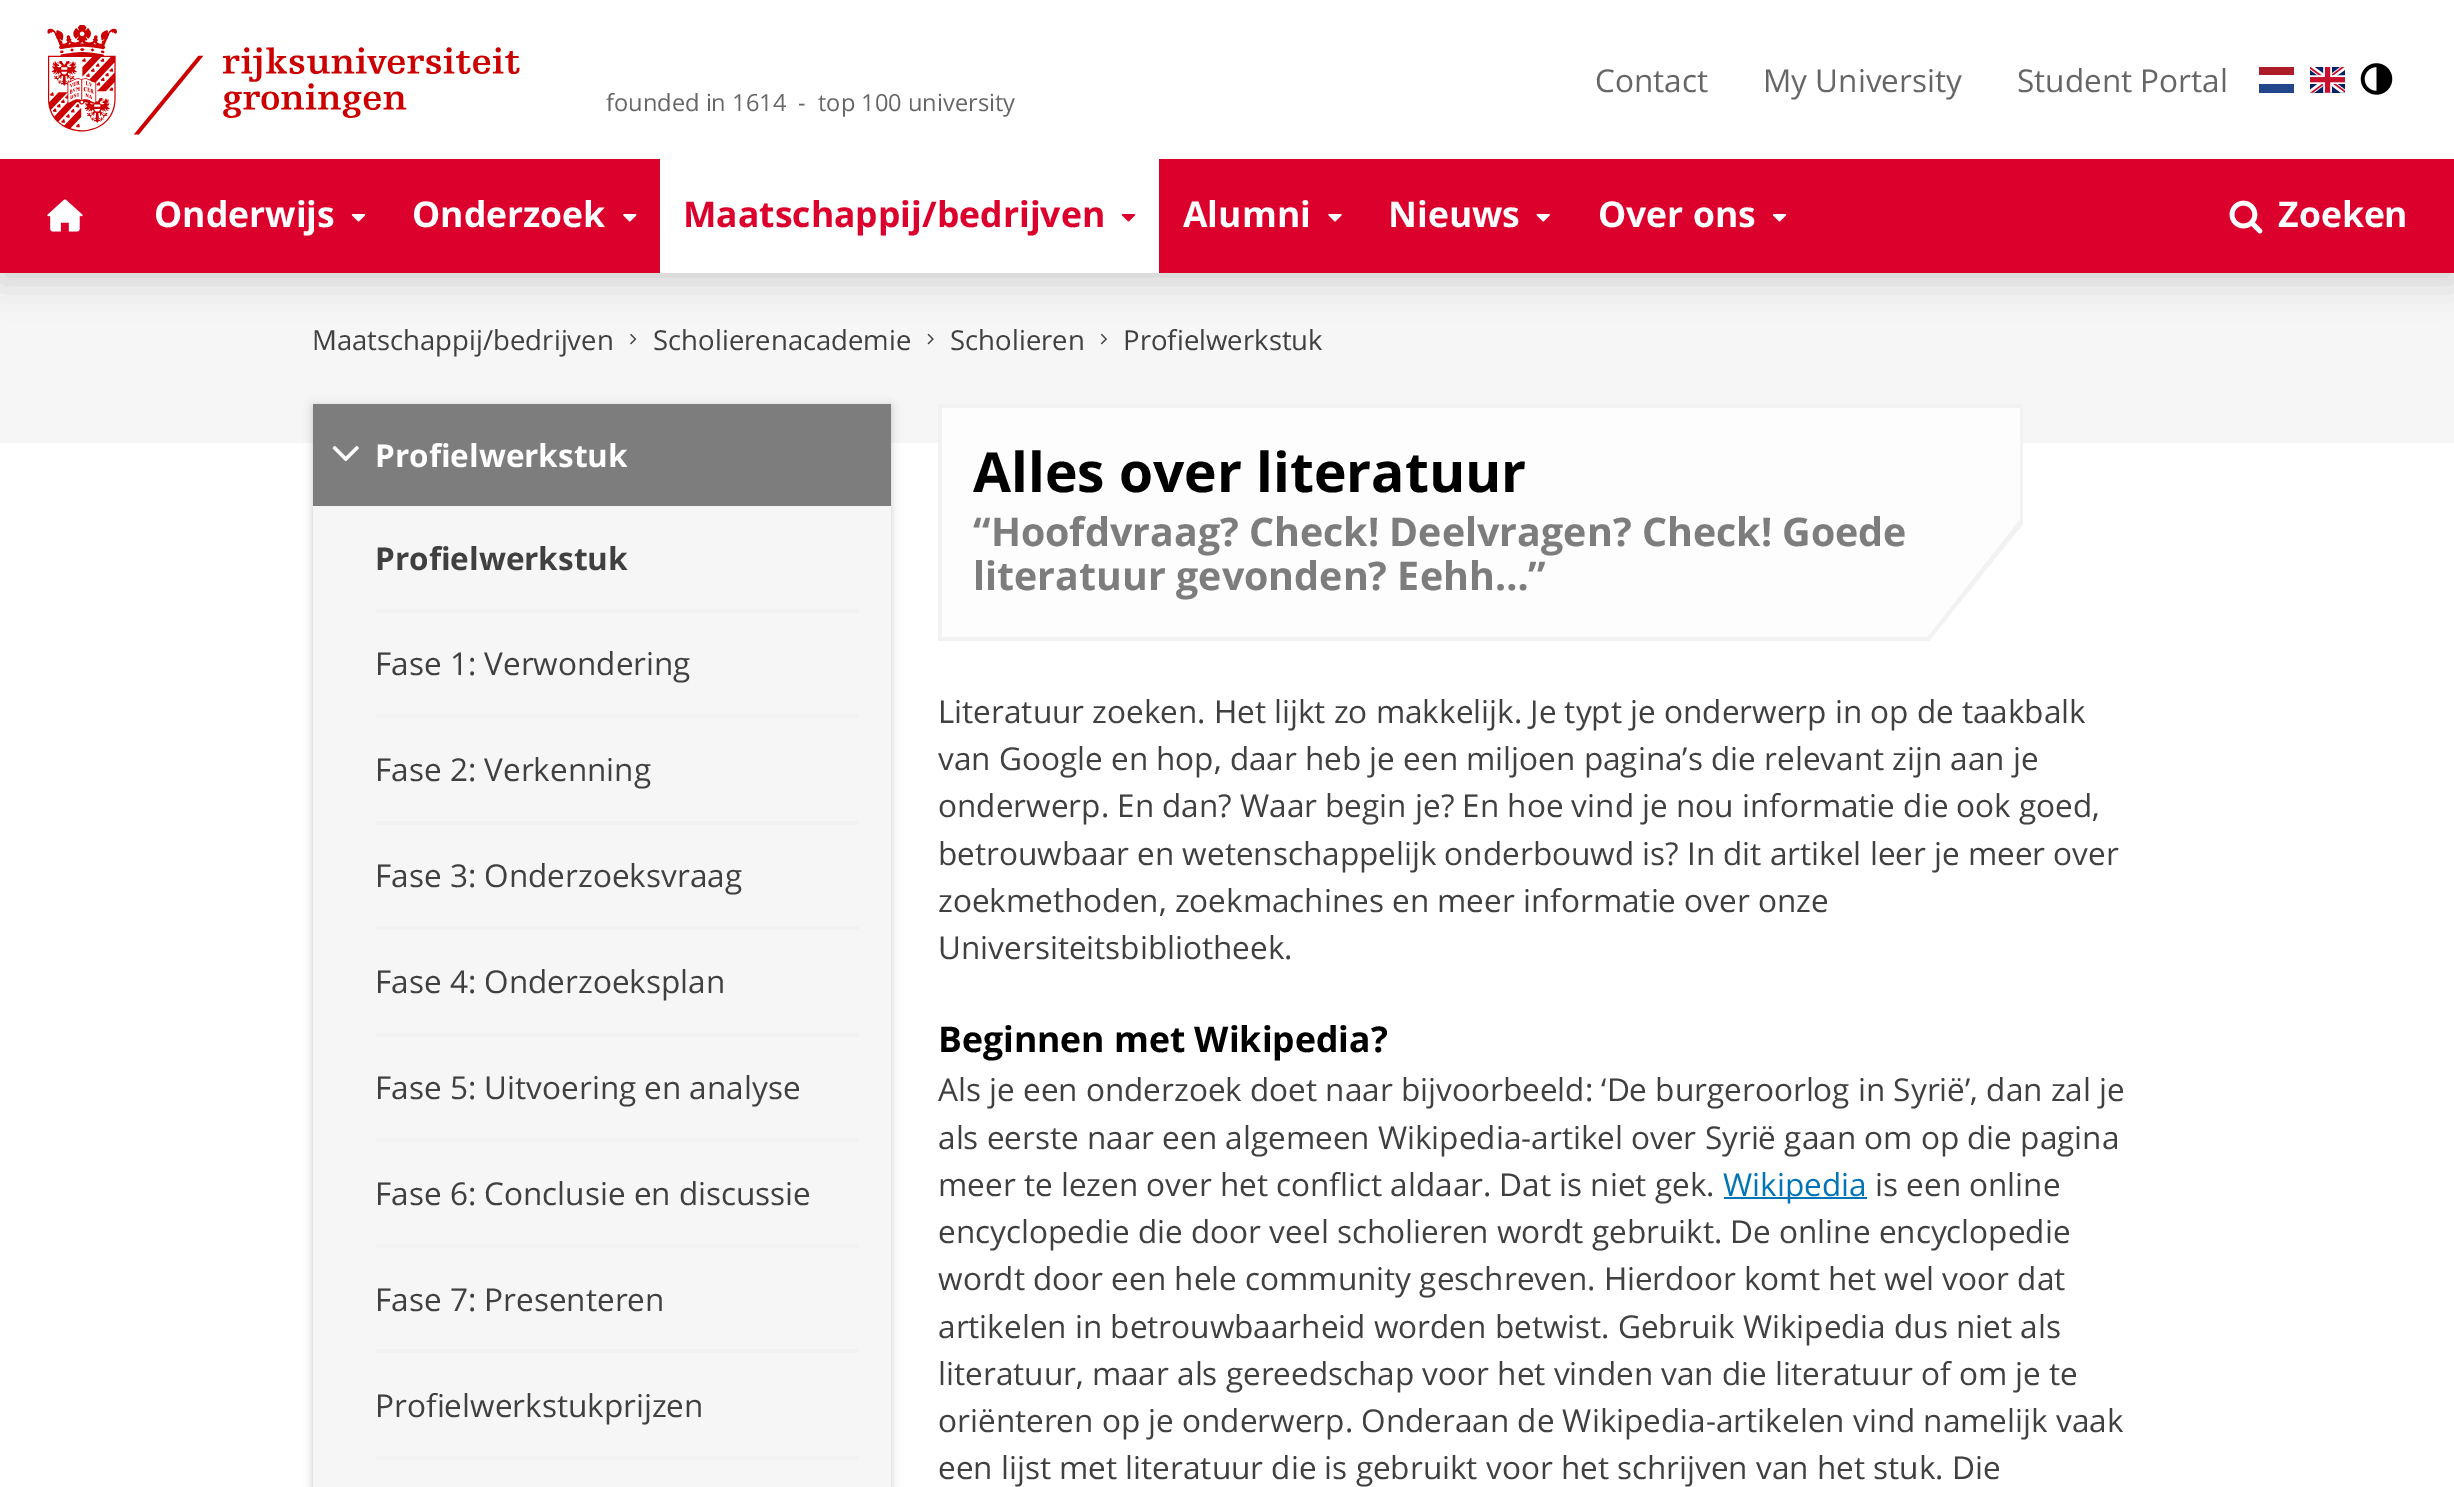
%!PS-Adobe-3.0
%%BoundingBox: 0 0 2454 1487
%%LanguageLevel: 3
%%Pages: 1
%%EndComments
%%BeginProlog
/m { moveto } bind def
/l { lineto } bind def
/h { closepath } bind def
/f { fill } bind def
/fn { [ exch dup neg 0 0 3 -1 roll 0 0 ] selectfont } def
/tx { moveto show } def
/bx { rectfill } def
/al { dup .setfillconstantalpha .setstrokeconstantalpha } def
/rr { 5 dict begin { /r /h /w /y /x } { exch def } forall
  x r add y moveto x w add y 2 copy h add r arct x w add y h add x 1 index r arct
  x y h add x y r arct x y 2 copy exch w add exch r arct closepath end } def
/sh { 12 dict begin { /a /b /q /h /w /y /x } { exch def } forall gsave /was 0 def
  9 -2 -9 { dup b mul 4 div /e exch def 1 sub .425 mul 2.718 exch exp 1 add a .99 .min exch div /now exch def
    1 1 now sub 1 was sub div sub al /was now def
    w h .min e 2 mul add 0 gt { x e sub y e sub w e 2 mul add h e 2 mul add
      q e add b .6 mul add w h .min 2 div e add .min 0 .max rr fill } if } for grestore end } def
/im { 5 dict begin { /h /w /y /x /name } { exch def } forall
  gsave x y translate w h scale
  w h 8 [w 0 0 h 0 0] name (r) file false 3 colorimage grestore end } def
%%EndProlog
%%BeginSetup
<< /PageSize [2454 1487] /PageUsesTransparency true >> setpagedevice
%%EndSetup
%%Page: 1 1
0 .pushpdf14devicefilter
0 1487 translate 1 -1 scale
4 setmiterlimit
0.965 setgray
0 0 2454 1487 bx
(image10.raw) 630 333 7 12 im
(image11.raw) 927 333 7 12 im
(image12.raw) 1100 333 7 12 im
0 setgray
0 9 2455 273 0 17.5 0.15 sh
1 setgray
0 0 2454 159 bx
(image0.raw) 47 25 473 110 im
/OpenSans-Regular 31.5 fn
0.4 setgray
(Contact) 1595 92 tx
(My University) 1763 92 tx
(Student Portal) 2017 92 tx
0.129 0.275 0.545 setrgbcolor
2259 84 35 9 bx
0.682 0.11 0.157 setrgbcolor
2259 67 35 8 bx
(image1.raw) 2310 67 35 26 im
(image2.raw) 2360 63 33 32 im
/OpenSans-Regular 23.6 fn
0.4 setgray
(founded in 1614  -  top 100 university) 606 111 tx
0.863 0 0.176 setrgbcolor
0 159 2454 114 bx
(image3.raw) 47 199 36 33 im
/OpenSans-Bold 35.5 fn
1 setgray
(Onderwijs) 154 227 tx
(image4.raw) 351 214 15 8 im
(Onderzoek) 412 227 tx
(image5.raw) 623 214 14 8 im
660 159 499 114 bx
0.863 0 0.176 setrgbcolor
(Maatschappij/bedrijven) 683 227 tx
(image6.raw) 1121 214 15 8 im
1 setgray
(Alumni) 1183 227 tx
(image7.raw) 1328 214 14 8 im
(Nieuws) 1388 227 tx
(image8.raw) 1536 214 14 8 im
(Over ons) 1598 227 tx
(image4.raw) 1772 214 15 8 im
(image9.raw) 2229 200 34 34 im
(Zoeken) 2278 227 tx
/OpenSans-Regular 27.5 fn
0.251 setgray
(Maatschappij/bedrijven) 312 350 tx
(Scholierenacademie) 653 350 tx
(Scholieren) 950 350 tx
(Profielwerkstuk) 1123 350 tx
1 setgray
0 443 2454 1044 bx
0 setgray
313 406 578 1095 0 4.5 0.2 sh
0.965 setgray
313 506 578 981 bx
0.49 setgray
313 404 578 102 bx
(image13.raw) 332 446 27 16 im
/OpenSans-Bold 31.5 fn
1 setgray
(Profielwerkstuk) 375 467 tx
0.949 setgray
376 609 483 4 bx
0.251 setgray
(Profielwerkstuk) 375 570 tx
0.949 setgray
376 714 483 4 bx
/OpenSans-Regular 31.5 fn
0.251 setgray
(Fase 1: Verwondering) 375 675 tx
0.949 setgray
376 821 483 4 bx
0.251 setgray
(Fase 2: Verkenning) 375 781 tx
0.949 setgray
376 926 483 4 bx
0.251 setgray
(Fase 3: Onderzoeksvraag) 375 887 tx
0.949 setgray
376 1033 483 4 bx
0.251 setgray
(Fase 4: Onderzoeksplan) 375 993 tx
0.949 setgray
376 1138 483 4 bx
0.251 setgray
(Fase 5: Uitvoering en analyse) 375 1099 tx
0.949 setgray
376 1244 483 4 bx
0.251 setgray
(Fase 6: Conclusie en discussie) 375 1205 tx
0.949 setgray
376 1349 483 4 bx
0.251 setgray
(Fase 7: Presenteren) 375 1311 tx
0.949 setgray
376 1456 483 4 bx
0.251 setgray
(Profielwerkstukprijzen) 375 1417 tx
0.949 setgray
938 404 m 2023 404 l 2023 524 l 1929 641 l 938 641 l h f
938 404 m 938 641 l 1929 641 l 1932 637 l 942 637 l 942 408 l 2019 408 l 2019 529 l 2023 524 l 2023 404 l h f
0.992 setgray
942 408 m 2020 408 l 2020 519 l 1927 637 l 942 637 l h f
/OpenSans-Bold 55.1 fn
0 setgray
(Alles over literatuur) 973 492 tx
/OpenSans-Bold 39.4 fn
0.49 setgray
(“Hoofdvraag? Check! Deelvragen? Check! Goede) 973 546 tx
(literatuur gevonden? Eehh…”) 973 590 tx
/OpenSans-Regular 31.5 fn
0.251 setgray
(Literatuur zoeken. Het lijkt zo makkelijk. Je typt je onderwerp in op de taakbalk) 938 723 tx
(van Google en hop, daar heb je een miljoen pagina’s die relevant zijn aan je) 938 770 tx
(onderwerp. En dan? Waar begin je? En hoe vind je nou informatie die ook goed,) 938 817 tx
(betrouwbaar en wetenschappelijk onderbouwd is? In dit artikel leer je meer over) 938 865 tx
(zoekmethoden, zoekmachines en meer informatie over onze) 938 912 tx
(Universiteitsbibliotheek.) 938 959 tx
/OpenSans-Bold 35.5 fn
0 setgray
(Beginnen met Wikipedia?) 938 1052 tx
/OpenSans-Regular 31.5 fn
0.251 setgray
(Als je een onderzoek doet naar bijvoorbeeld: ‘De burgeroorlog in Syrië’, dan zal je) 938 1101 tx
(als eerste naar een algemeen Wikipedia-artikel over Syrië gaan om op die pagina) 938 1149 tx
(meer te lezen over het conflict aldaar. Dat is niet gek.) 938 1196 tx
0 0.455 0.714 setrgbcolor
1724 1197 143 2 bx
(Wikipedia) 1723 1196 tx
0.251 setgray
(is een online) 1875 1196 tx
(encyclopedie die door veel scholieren wordt gebruikt. De online encyclopedie) 938 1243 tx
(wordt door een hele community geschreven. Hierdoor komt het wel voor dat) 938 1290 tx
(artikelen in betrouwbaarheid worden betwist. Gebruik Wikipedia dus niet als) 938 1338 tx
(literatuur, maar als gereedschap voor het vinden van die literatuur of om je te) 938 1385 tx
(oriënteren op je onderwerp. Onderaan de Wikipedia-artikelen vind namelijk vaak) 938 1432 tx
(een lijst met literatuur die is gebruikt voor het schrijven van het stuk. Die) 938 1479 tx
.poppdf14devicefilter showpage
%%EOF
